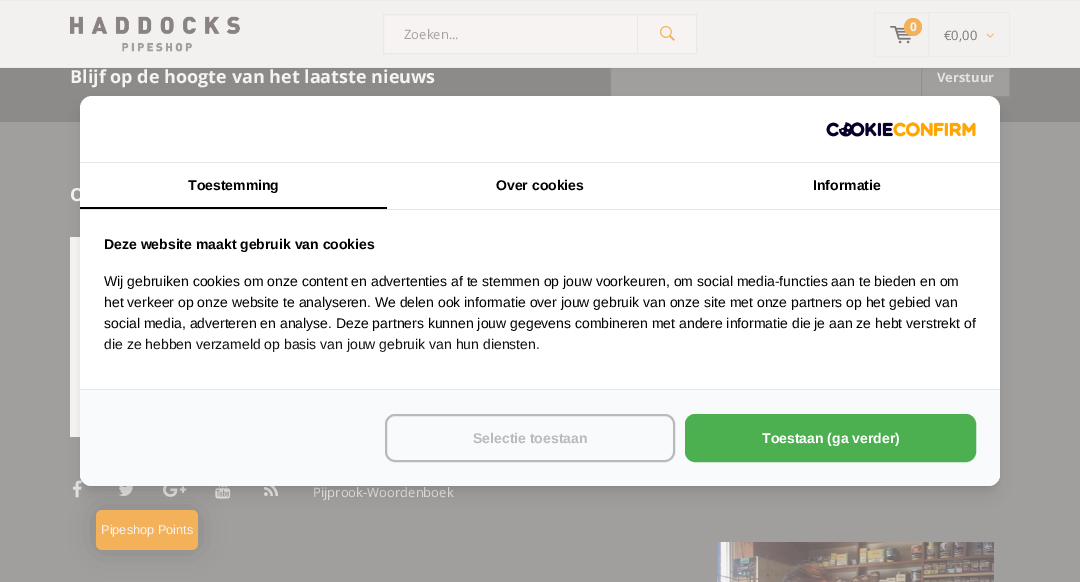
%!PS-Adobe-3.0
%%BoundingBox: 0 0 1080 582
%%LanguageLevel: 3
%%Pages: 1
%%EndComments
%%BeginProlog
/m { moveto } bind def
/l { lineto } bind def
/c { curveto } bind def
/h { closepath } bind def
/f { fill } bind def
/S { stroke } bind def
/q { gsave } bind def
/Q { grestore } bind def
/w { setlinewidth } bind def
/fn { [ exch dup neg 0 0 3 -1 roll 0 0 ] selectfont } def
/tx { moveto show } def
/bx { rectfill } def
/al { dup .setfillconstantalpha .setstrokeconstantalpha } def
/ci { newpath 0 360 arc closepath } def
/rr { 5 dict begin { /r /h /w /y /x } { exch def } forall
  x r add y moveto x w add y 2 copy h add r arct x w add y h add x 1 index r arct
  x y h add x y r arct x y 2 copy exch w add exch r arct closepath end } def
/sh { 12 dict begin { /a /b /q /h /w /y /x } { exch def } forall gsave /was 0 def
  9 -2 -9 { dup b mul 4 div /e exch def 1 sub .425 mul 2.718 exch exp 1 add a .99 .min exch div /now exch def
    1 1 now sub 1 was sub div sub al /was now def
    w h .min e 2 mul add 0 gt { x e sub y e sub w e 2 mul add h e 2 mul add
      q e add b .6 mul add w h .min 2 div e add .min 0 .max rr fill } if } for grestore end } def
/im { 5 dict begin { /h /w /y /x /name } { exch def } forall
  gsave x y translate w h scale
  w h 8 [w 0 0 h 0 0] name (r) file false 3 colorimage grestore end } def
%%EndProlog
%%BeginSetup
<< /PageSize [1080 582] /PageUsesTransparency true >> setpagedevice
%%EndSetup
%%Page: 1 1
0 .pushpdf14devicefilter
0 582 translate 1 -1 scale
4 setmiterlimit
0.631 0.62 0.62 setrgbcolor
0 0 1080 582 bx
0.553 0.541 0.541 setrgbcolor
0 68 1080 54 bx
0.631 0.62 0.62 setrgbcolor
611 68 310 28 bx
0.58 0.565 0.565 setrgbcolor
610.5 57.5 399 39 rectstroke
0.631 0.62 0.62 setrgbcolor
922 68 87 28 bx
0.58 0.565 0.565 setrgbcolor
921.5 57.5 88 39 rectstroke
0.369 0.353 0.353 setrgbcolor
1 1 1078 66 0 2.5 0.2 sh
0.953 0.941 0.941 setrgbcolor
0 1 1080 66 bx
0.929 0.918 0.918 setrgbcolor
0 0 1080 1 bx
0 67 1080 1 bx
(image0.raw) 70 16 170 36 im
0.969 0.953 0.953 setrgbcolor
383.5 14.5 m 696.5 14.5 l 696.5 53.5 l 383.5 53.5 l h q f Q
0.922 0.906 0.906 setrgbcolor
S
/OpenSans-Regular 13 fn
0.643 0.631 0.631 setrgbcolor
(Zoeken...) 404 39 tx
0.922 0.906 0.906 setrgbcolor
637 14 1 40 bx
(image1.raw) 660 26 15 15 im
0.929 0.918 0.918 setrgbcolor
874.5 12.5 54 44 rectstroke
(image2.raw) 890 26 22 18 im
0.953 0.694 0.353 setrgbcolor
913 27 9 ci f
/OpenSans-Bold 12 fn
0.969 0.953 0.953 setrgbcolor
(0) 910 31 tx
0.929 0.918 0.918 setrgbcolor
929 12 81 1 bx
1009 12 1 45 bx
929 56 81 1 bx
/OpenSans-Regular 13 fn
0.49 0.475 0.475 setrgbcolor
(€0,00) 944 40 tx
(image3.raw) 986 33 8 5 im
/OpenSans-Bold 18 fn
0.969 0.953 0.953 setrgbcolor
(Blijf op de hoogte van het laatste nieuws) 70 83 tx
/OpenSans-Bold 13 fn
0.894 0.882 0.882 setrgbcolor
(Verstuur) 937 82 tx
/OpenSans-Bold 18 fn
0.969 0.953 0.953 setrgbcolor
(O) 70 201 tx
70 237 10 200 bx
(image4.raw) 72 480 10 18 im
(image5.raw) 118 486 15 10 im
(image6.raw) 163 486 24 11 im
(image7.raw) 215 486 16 13 im
(image8.raw) 264 486 15 10 im
/OpenSans-Regular 13 fn
0.894 0.882 0.882 setrgbcolor
(Pijprook-Woordenboek) 313 497 tx
(image9.raw) 717 542 277 40 im
0 setgray
84 104 912 382 8 3 0.1 sh
0.369 0.353 0.353 setrgbcolor
101 515 92 30 1 15 0.5 sh
0.953 0.694 0.353 setrgbcolor
96 510 102 40 6 rr f
0 setgray
83 109 914 384 9 7.5 0.1 sh
1 setgray
80 96 920 390 12 rr f
0.898 0.906 0.922 setrgbcolor
80 162 920 1 bx
(image10.raw) 826 122 150 15 im
80 209 920 1 bx
0 setgray
80 207 307 2 bx
/LiberationSans-Bold 14 fn
(Toestemming) 188 190 tx
(Over cookies) 496 190 tx
(Informatie) 813 190 tx
(Deze website maakt gebruik van cookies) 104 249 tx
/LiberationSans-Regular 14 fn
(Wij gebruiken cookies om onze content en advertenties af te stemmen op jouw voorkeuren, om social media-functies aan te bieden en om) 104 286 tx
(het verkeer op onze website te analyseren. We delen ook informatie over jouw gebruik van onze site met onze partners op het gebied van) 104 307 tx
(social media, adverteren en analyse. Deze partners kunnen jouw gegevens combineren met andere informatie die je aan ze hebt verstrekt of) 104 328 tx
(die ze hebben verzameld op basis van jouw gebruik van hun diensten.) 104 349 tx
q
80 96 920 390 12 rr clip newpath
1 setgray
72 361 936 113 0 10 1 sh
Q
0.976 0.98 0.984 setrgbcolor
80 389 m 1000 389 l 1000 474 l 1000 480.5 994.5 486 988 486 c 92 486 l 85.5 486 80 480.5 80 474 c h f
0.898 0.906 0.922 setrgbcolor
80 389 920 1 bx
0.729 setgray
2 w
386 415 288 46 9 rr S
/LiberationSans-Bold 14 fn
(Selectie toestaan) 473 443 tx
0.298 0.686 0.314 setrgbcolor
686 415 289 46 9 rr q f Q
S
1 setgray
(Toestaan \(ga verder\)) 762 443 tx
/LiberationSans-Regular 12.75 fn
0.969 0.953 0.953 setrgbcolor
(Pipeshop Points) 101 534 tx
.poppdf14devicefilter showpage
%%EOF
